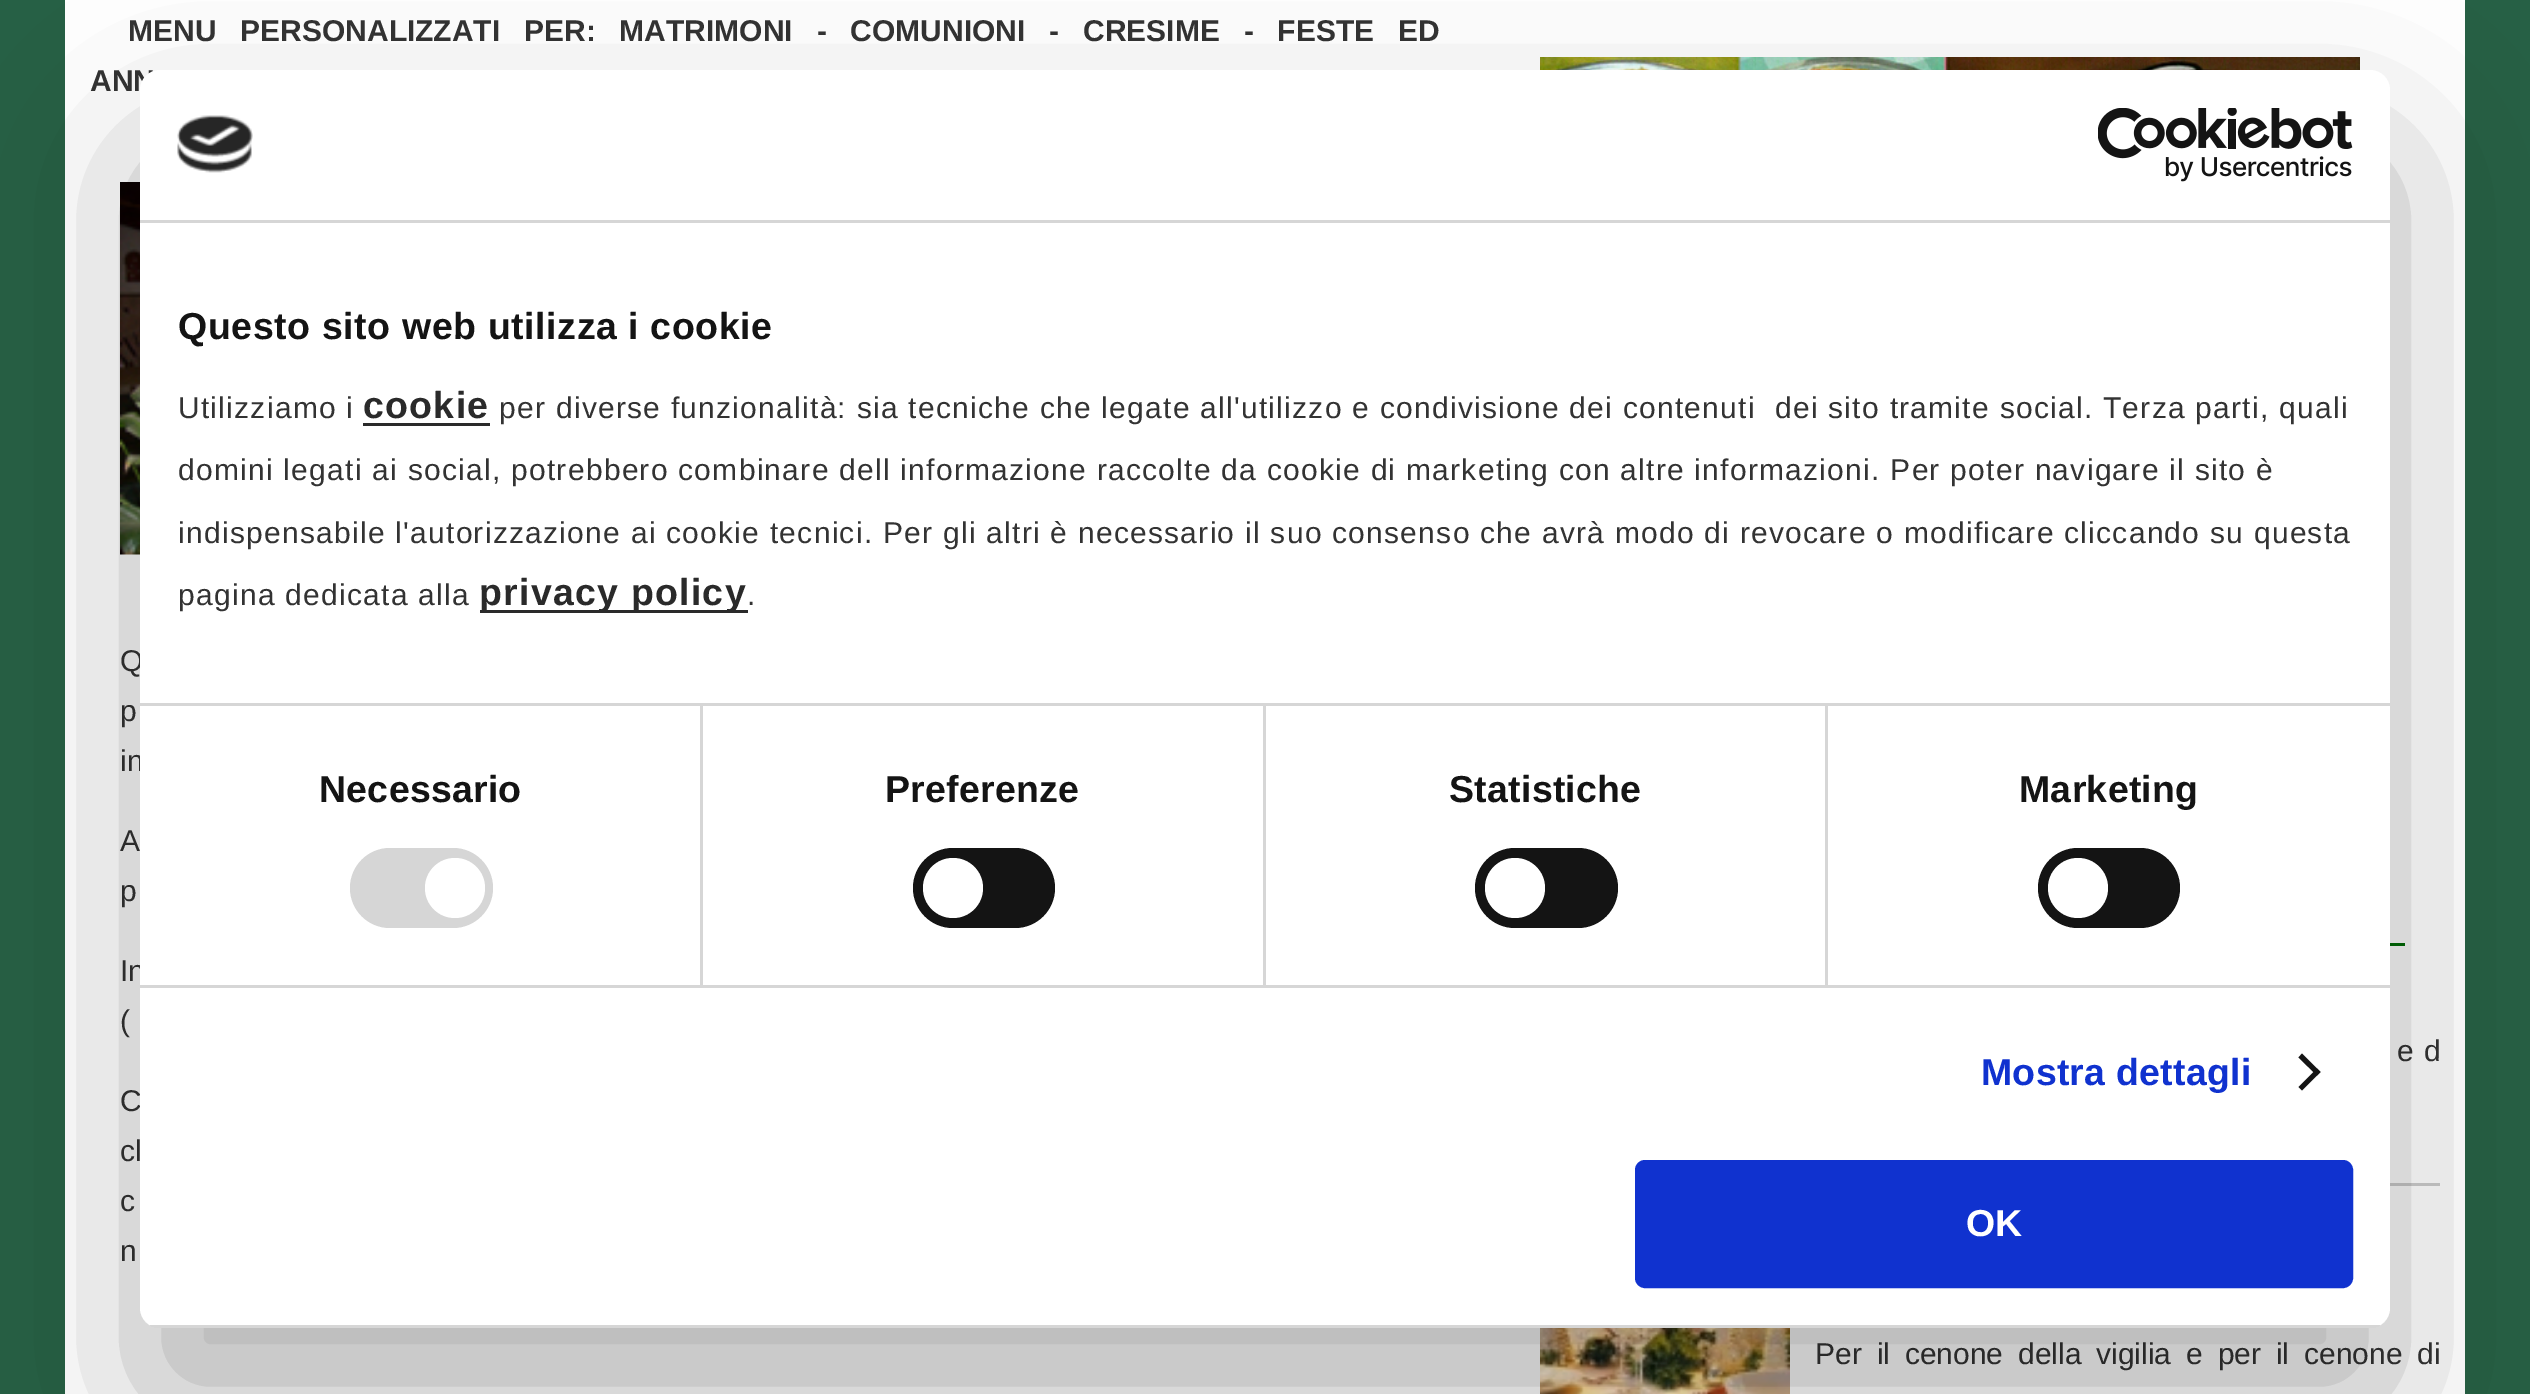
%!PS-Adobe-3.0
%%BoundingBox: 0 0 2530 1394
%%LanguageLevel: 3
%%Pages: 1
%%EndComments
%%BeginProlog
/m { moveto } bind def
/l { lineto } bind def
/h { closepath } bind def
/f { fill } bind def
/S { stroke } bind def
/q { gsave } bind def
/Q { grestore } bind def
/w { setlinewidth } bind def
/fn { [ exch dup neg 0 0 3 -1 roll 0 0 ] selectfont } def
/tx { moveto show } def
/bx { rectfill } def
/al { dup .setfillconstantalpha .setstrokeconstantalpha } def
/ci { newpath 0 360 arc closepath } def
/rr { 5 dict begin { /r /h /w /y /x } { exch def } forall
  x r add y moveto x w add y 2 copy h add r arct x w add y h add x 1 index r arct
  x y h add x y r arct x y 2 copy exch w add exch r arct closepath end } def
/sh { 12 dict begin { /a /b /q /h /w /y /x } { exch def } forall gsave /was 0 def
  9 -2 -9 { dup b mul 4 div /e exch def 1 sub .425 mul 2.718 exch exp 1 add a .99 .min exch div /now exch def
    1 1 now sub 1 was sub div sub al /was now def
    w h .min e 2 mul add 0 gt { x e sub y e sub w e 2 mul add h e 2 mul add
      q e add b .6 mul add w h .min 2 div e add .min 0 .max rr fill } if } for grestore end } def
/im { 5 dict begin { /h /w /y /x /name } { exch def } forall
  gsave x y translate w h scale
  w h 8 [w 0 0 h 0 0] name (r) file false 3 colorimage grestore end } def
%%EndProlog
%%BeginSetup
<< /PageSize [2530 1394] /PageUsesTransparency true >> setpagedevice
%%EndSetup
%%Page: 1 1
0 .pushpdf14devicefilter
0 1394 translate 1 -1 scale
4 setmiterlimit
0.149 0.376 0.271 setrgbcolor
0 0 2530 1394 bx
1 setgray
65 0 2400 1394 bx
/LiberationSans-Bold 30 fn
0.2 setgray
128 41 m 15.5 0 32 (MENU PERSONALIZZATI PER: MATRIMONI - COMUNIONI - CRESIME - FESTE ED) widthshow
(ANN) 90 91 tx
(image0.raw) 120 182 20 373 im
/LiberationSans-Regular 30 fn
(Q) 120 671 tx
120 721 m 2 0 32 (p) widthshow
(in) 120 771 tx
120 851 m 10 0 32 (A) widthshow
(p) 120 901 tx
120 981 m 2 0 32 (In) widthshow
(\() 120 1031 tx
120 1111 m 4 0 32 (C) widthshow
120 1161 m 1 0 32 (cl) widthshow
120 1211 m 3 0 32 (c) widthshow
(n) 120 1261 tx
(image1.raw) 1540 57 820 13 im
0.8 setgray
2390 1183 50 3 bx
0 0.424 0.02 setrgbcolor
2390 943 15 3 bx
0.2 setgray
2397 1061 m 2 0 32 (e d) widthshow
(image2.raw) 1540 1328 250 66 im
1815 1364 m 6.5 0 32 (Per il cenone della vigilia e per il cenone di) widthshow
0 setgray
140 150 2250 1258 20 85 0.3 sh
1 setgray
140 70 2250 1258 20 rr f
0.839 setgray
140 220 2250 3 bx
(image3.raw) 177 115 76 58 im
(image4.raw) 2098 108 255 74 im
700 705 3 280 bx
1263 705 3 280 bx
1825 705 3 280 bx
140 703 2250 3 bx
/LiberationSans-Bold 37.5 fn
0.078 setgray
178 339 m 0.6 0 (Questo sito web utilizza i cookie) ashow
/LiberationSans-Regular 30 fn
0.2 setgray
178 418 m 1.25 0 (Utilizziamo i) ashow
/LiberationSans-Bold 37.5 fn
0.165 setgray
363 418 m 1.25 0 (cookie) ashow
363 423 127 3 bx
/LiberationSans-Regular 30 fn
0.2 setgray
499 418 m 1.25 0 (per diverse funzionalità: sia tecniche che legate all'utilizzo e condivisione dei contenuti  dei sito tramite social. Terza parti, quali) ashow
178 480 m 1.25 0 (domini legati ai social, potrebbero combinare dell informazione raccolte da cookie di marketing con altre informazioni. Per poter navigare il sito è) ashow
178 543 m 1.25 0 (indispensabile l'autorizzazione ai cookie tecnici. Per gli altri è necessario il suo consenso che avrà modo di revocare o modificare cliccando su questa) ashow
178 605 m 1.25 0 (pagina dedicata alla) ashow
0.165 setgray
480 610 268 3 bx
/LiberationSans-Bold 37.5 fn
479 605 m 1.25 0 (privacy policy) ashow
/LiberationSans-Regular 30 fn
0.2 setgray
747 605 m 1.25 0 (.) ashow
0.839 setgray
140 985 2250 3 bx
/LiberationSans-Bold 37.5 fn
0.078 setgray
319 802 m 0.25 0 (Necessario) ashow
0.839 setgray
350 848 143 80 40 rr f
1 setgray
455 888 30 ci f
0.078 setgray
885 802 m 0.25 0 (Preferenze) ashow
913 848 142 80 40 rr f
1 setgray
953 888 30 ci f
0.078 setgray
1449 802 m 0.25 0 (Statistiche) ashow
1475 848 143 80 40 rr f
1 setgray
1515 888 30 ci f
0.078 setgray
2019 802 m 0.25 0 (Marketing) ashow
2038 848 142 80 40 rr f
1 setgray
2078 888 30 ci f
0.063 0.196 0.812 setrgbcolor
1981 1085 m 0.25 0 (Mostra dettagli) ashow
0.078 setgray
2302 1053.5 m 2320.5 1072 l 2317 1075.5 l 2298.5 1057.5 l h f
2317 1068.5 m 2320.5 1072 l 2302 1090.5 l 2298.5 1087 l h f
q
140 70 2250 1258 20 rr clip newpath
0.839 setgray
149 1325 2232 3 bx
Q
0.063 0.196 0.812 setrgbcolor
1637.5 1162.5 713 123 7.5 rr q f Q
5 w
S
1 setgray
(OK) 1966 1236 tx
.poppdf14devicefilter showpage
%%EOF
